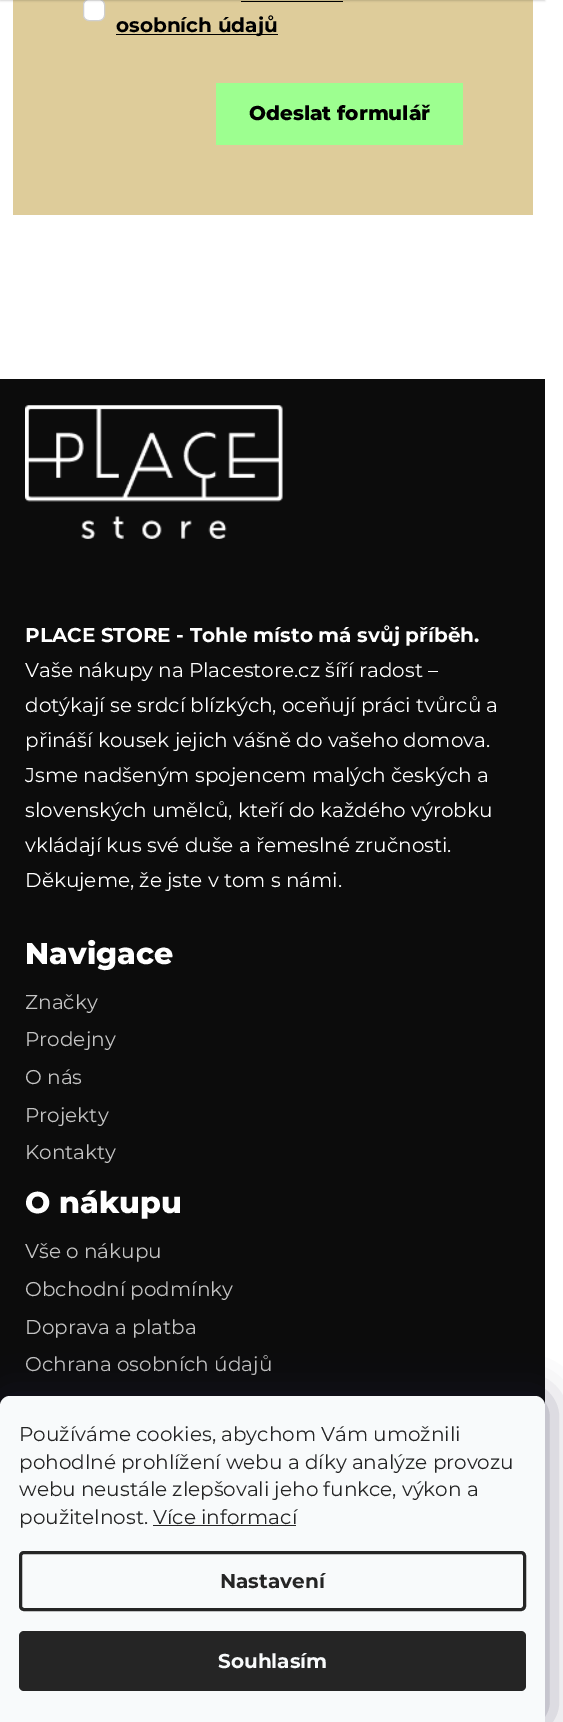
%!PS-Adobe-3.0
%%BoundingBox: 0 0 563 1722
%%LanguageLevel: 3
%%Pages: 1
%%EndComments
%%BeginProlog
/m { moveto } bind def
/l { lineto } bind def
/c { curveto } bind def
/h { closepath } bind def
/f { fill } bind def
/S { stroke } bind def
/q { gsave } bind def
/Q { grestore } bind def
/w { setlinewidth } bind def
/fn { [ exch dup neg 0 0 3 -1 roll 0 0 ] selectfont } def
/tx { moveto show } def
/bx { rectfill } def
/al { dup .setfillconstantalpha .setstrokeconstantalpha } def
/rr { 5 dict begin { /r /h /w /y /x } { exch def } forall
  x r add y moveto x w add y 2 copy h add r arct x w add y h add x 1 index r arct
  x y h add x y r arct x y 2 copy exch w add exch r arct closepath end } def
/sh { 12 dict begin { /a /b /q /h /w /y /x } { exch def } forall gsave /was 0 def
  9 -2 -9 { dup b mul 4 div /e exch def 1 sub .425 mul 2.718 exch exp 1 add a .99 .min exch div /now exch def
    1 1 now sub 1 was sub div sub al /was now def
    w h .min e 2 mul add 0 gt { x e sub y e sub w e 2 mul add h e 2 mul add
      q e add b .6 mul add w h .min 2 div e add .min 0 .max rr fill } if } for grestore end } def
/im { 5 dict begin { /h /w /y /x /name } { exch def } forall
  gsave x y translate w h scale
  w h 8 [w 0 0 h 0 0] name (r) file false 3 colorimage grestore end } def
%%EndProlog
%%BeginSetup
<< /PageSize [563 1722] /PageUsesTransparency true >> setpagedevice
%%EndSetup
%%Page: 1 1
0 .pushpdf14devicefilter
0 1722 translate 1 -1 scale
4 setmiterlimit
1 setgray
0 0 563 1722 bx
0.871 0.8 0.604 setrgbcolor
13 0 520 215 bx
1 setgray
83.5 -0.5 21 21 5.5 rr q f Q
0.812 setgray
S
0 setgray
241 1 102 1 bx
0 -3 545 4 0 1 0.16 sh
116 34 162 1 bx
/Montserrat-Bold 20 fn
(osobních údajů) 116 32 tx
0.616 1 0.565 setrgbcolor
216 83 247 62 bx
/Montserrat-ExtraBold 20 fn
0 setgray
(Odeslat formulář) 249 120 tx
0.047 setgray
0 379 545 1027 bx
(image0.raw) 25 405 258 134 im
/Montserrat-Bold 20 fn
1 setgray
(PLACE STORE - Tohle místo má svůj příběh.) 25 642 tx
/Montserrat-Regular 20 fn
(Vaše nákupy na Placestore.cz šíří radost –) 25 677 tx
(dotýkají se srdcí blízkých, oceňují práci tvůrců a) 25 712 tx
(přináší kousek jejich vášně do vašeho domova.) 25 747 tx
(Jsme nadšeným spojencem malých českých a) 25 782 tx
(slovenských umělců, kteří do každého výrobku) 25 817 tx
(vkládají kus své duše a řemeslné zručnosti.) 25 852 tx
(Děkujeme, že jste v tom s námi.) 25 887 tx
/Montserrat-ExtraBold 30 fn
(Navigace) 25 964 tx
/Montserrat-Regular 20 fn
0.765 setgray
(Značky) 25 1009 tx
(Prodejny) 25 1046 tx
(O nás) 25 1084 tx
(Projekty) 25 1122 tx
(Kontakty) 25 1159 tx
/Montserrat-ExtraBold 30 fn
1 setgray
(O nákupu) 25 1213 tx
/Montserrat-Regular 20 fn
0.765 setgray
(Vše o nákupu) 25 1258 tx
(Obchodní podmínky) 25 1296 tx
(Doprava a platba) 25 1334 tx
(Ochrana osobních údajů) 25 1371 tx
0.106 0.098 0.224 setrgbcolor
0 1396 545 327 10 19 0.5 sh
0.973 0.98 0.984 setrgbcolor
10 1396 m 535 1396 l 540.5 1396 545 1400.5 545 1406 c 545 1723 l 0 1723 l 0 1406 l 0 1400.5 4.5 1396 10 1396 c h f
0.145 setgray
(Používáme cookies, abychom Vám umožnili) 19 1441 tx
(pohodlné prohlížení webu a díky analýze provozu) 19 1469 tx
(webu neustále zlepšovali jeho funkce, výkon a) 19 1496 tx
(použitelnost. Více informací) 19 1524 tx
153 1525 143 1 bx
3 w
20.5 1552.5 504 57 3.5 rr S
/Montserrat-Bold 20 fn
(Nastavení) 220 1588 tx
19 1631 507 60 5 rr f
0.973 0.98 0.984 setrgbcolor
(Souhlasím) 218 1668 tx
.poppdf14devicefilter showpage
%%EOF
